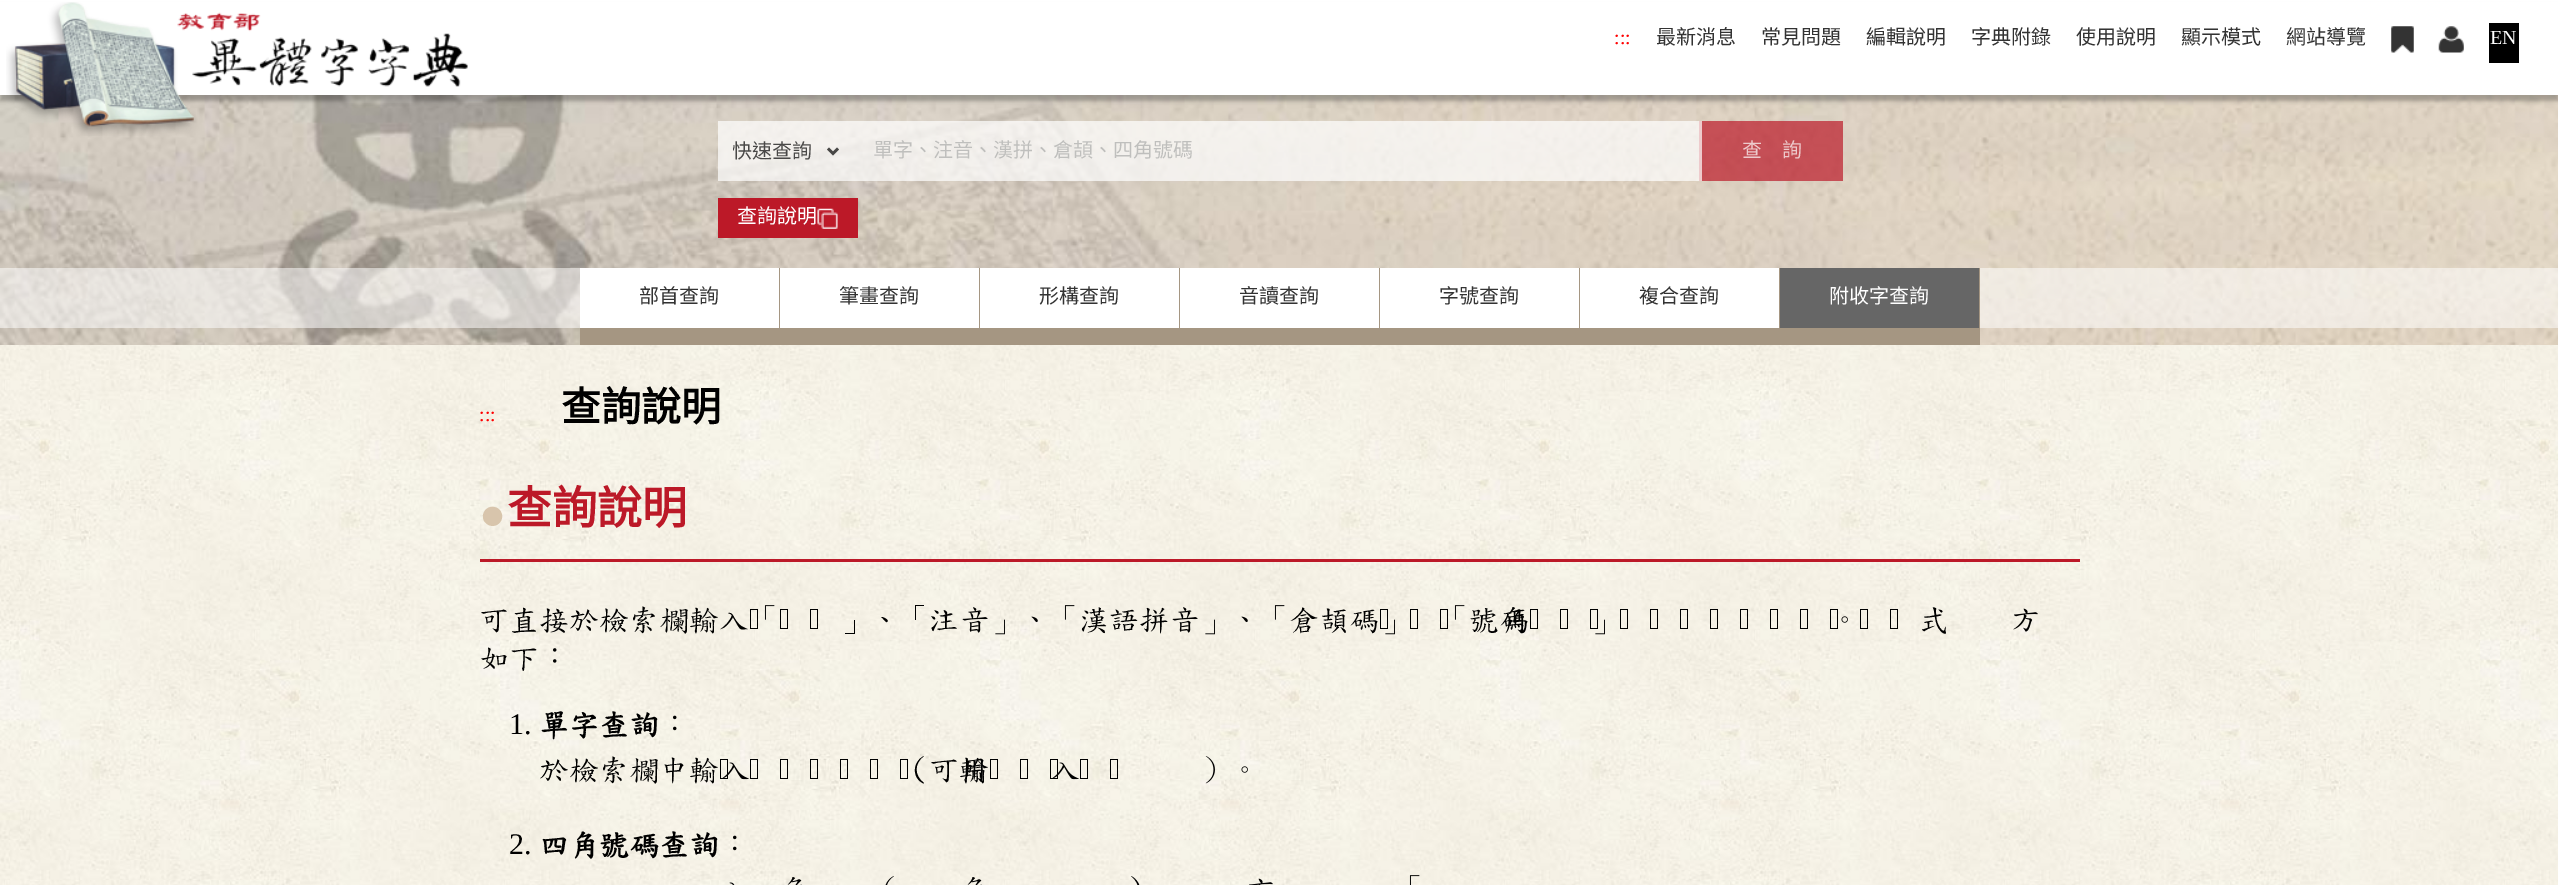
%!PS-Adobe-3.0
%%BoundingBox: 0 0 2558 885
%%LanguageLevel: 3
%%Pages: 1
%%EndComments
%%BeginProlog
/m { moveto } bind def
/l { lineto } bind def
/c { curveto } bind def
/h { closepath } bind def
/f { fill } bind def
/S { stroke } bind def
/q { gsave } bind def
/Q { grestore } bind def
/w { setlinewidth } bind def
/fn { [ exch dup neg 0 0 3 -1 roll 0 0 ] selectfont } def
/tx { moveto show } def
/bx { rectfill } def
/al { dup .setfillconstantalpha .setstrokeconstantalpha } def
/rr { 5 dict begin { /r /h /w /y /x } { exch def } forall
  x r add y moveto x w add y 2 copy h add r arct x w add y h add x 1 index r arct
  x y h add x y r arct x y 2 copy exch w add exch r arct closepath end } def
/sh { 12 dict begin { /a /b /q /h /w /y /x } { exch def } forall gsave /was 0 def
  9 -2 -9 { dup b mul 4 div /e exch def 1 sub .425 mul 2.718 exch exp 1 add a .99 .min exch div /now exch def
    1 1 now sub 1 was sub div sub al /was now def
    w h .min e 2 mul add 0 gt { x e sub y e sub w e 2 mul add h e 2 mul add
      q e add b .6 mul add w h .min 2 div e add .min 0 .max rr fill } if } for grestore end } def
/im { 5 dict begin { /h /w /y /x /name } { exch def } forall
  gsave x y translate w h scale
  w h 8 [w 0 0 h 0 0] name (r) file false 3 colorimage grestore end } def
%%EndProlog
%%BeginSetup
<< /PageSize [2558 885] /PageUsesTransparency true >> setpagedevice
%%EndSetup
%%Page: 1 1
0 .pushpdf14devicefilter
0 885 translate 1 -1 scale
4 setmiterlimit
1 setgray
0 0 2558 885 bx
(image0.raw) 0 345 2558 540 im
(image4.raw) 0 95 2558 250 im
0 setgray
0 6 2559 95 0 2 0.27 sh
1 setgray
0 2 2558 93 bx
(image1.raw) 6 2 462 134 im
/LiberationSerif-Regular 20 fn
1 0 0 setrgbcolor
(:::) 1614 44 tx
/NotoSansCJKTC-Regular 20 fn
0.2 setgray
(最新消息) 1656 44 tx
(常見問題) 1761 44 tx
(編輯說明) 1866 44 tx
(字典附錄) 1971 44 tx
(使用說明) 2076 44 tx
(顯示模式) 2181 44 tx
(網站導覽) 2286 44 tx
(image2.raw) 2391 26 23 27 im
(image3.raw) 2438 26 26 27 im
0 setgray
2489 23 30 40 bx
/LiberationSerif-Regular 20 fn
1 setgray
(EN) 2490 44 tx
0.7 al
718 121 126 60 bx
0 setgray
2.5 w
828 148.5 m 833 153.5 l 838 148.5 l S
q
733 139 81 24 rectclip
/NotoSansCJKTC-Regular 20 fn
1 al
0.286 0.282 0.278 setrgbcolor
(快速查詢) 732 158 tx
Q
1 setgray
844 121 855 60 bx
/NotoSansCJKTC-Regular 20 fn
1 al
0.749 0.749 0.741 setrgbcolor
(單字、注音、漢拼、倉頡、四角號碼) 873 157 tx
0.7 al
0.737 0.098 0.157 setrgbcolor
1699 121 144 60 bx
1 setgray
1699 121 3 60 bx
1 al
0.929 0.792 0.8 setrgbcolor
(查　詢) 1742 157 tx
0.737 0.098 0.157 setrgbcolor
718 198 140 40 bx
1 setgray
(查詢說明) 737 223 tx
(image5.raw) 817 208 21 21 im
0.53 al
0 268 2558 60 bx
1 al
580 268 199 60 bx
0.647 0.588 0.51 setrgbcolor
779 268 1 60 bx
580 328 1400 17 bx
0.2 setgray
(部首查詢) 639 303 tx
1 setgray
780 268 199 60 bx
0.647 0.588 0.51 setrgbcolor
979 268 1 60 bx
0.2 setgray
(筆畫查詢) 839 303 tx
1 setgray
980 268 199 60 bx
0.647 0.588 0.51 setrgbcolor
1179 268 1 60 bx
0.2 setgray
(形構查詢) 1039 303 tx
1 setgray
1180 268 199 60 bx
0.647 0.588 0.51 setrgbcolor
1379 268 1 60 bx
0.2 setgray
(音讀查詢) 1239 303 tx
1 setgray
1380 268 199 60 bx
0.647 0.588 0.51 setrgbcolor
1579 268 1 60 bx
0.2 setgray
(字號查詢) 1439 303 tx
1 setgray
1580 268 199 60 bx
0.647 0.588 0.51 setrgbcolor
1779 268 1 60 bx
0.2 setgray
(複合查詢) 1639 303 tx
0.4 setgray
1780 268 199 60 bx
0.647 0.588 0.51 setrgbcolor
1979 268 1 60 bx
1 setgray
(附收字查詢) 1829 303 tx
/LiberationSerif-Regular 20 fn
1 0 0 setrgbcolor
(:::) 479 421 tx
/NotoSansCJKTC-Bold 40 fn
0 setgray
(查詢說明) 561 421 tx
0.737 0.098 0.157 setrgbcolor
480 559 1600 3 bx
/LiberationSerif-Regular 45 fn
0.847 0.773 0.675 setrgbcolor
(●) 479 529 tx
/NotoSansCJKTC-Bold 45 fn
0.737 0.098 0.157 setrgbcolor
(查詢說明) 507 524 tx
/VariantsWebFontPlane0-Regular 30 fn
0 setgray
(可直接於檢索欄輸入 單字) 479 629 tx
(image6.raw) 764 605 11 15 im
(image7.raw) 962 605 113 30 im
(image8.raw) 1172 605 113 30 im
(image9.raw) 1454 605 11 15 im
(漢語拼) 1079 629 tx
(image10.raw) 1385 619 10 16 im
(image11.raw) 1505 607 19 27 im
(image12.raw) 1595 619 10 16 im
(image13.raw) 1841 616 7 7 im
(image14.raw) 2013 608 25 24 im
(倉頡碼 或 四 號碼 等五種屬性查詢 茲分述查詢 式) 1289 629 tx
(注) 929 629 tx
855 620 m 855 634 l 845 634 l 845 633 l 854 633 l 854 620 l h 882 617 m 883 617 890 620 887 622 c 886 623 883 618 881 617 c h 924 605 m 924 606 l 916 606 l 916 620 l 915 620 l 915 605 l h f
(如下) 479 667 tx
(image15.raw) 553 648 4 15 im
/LiberationSerif-Regular 30 fn
(1.) 509 734 tx
/VariantsWebFontPlane0-Bold 30 fn
(單字查詢) 539 734 tx
(image16.raw) 673 715 4 16 im
924 756 m 914 763.5 914 775.5 924 783 c 923.5 783.5 l 911.5 778 912.5 761.5 924 756 c h f
(image18.raw) 721 762 28 18 im
(image19.raw) 963 758 21 24 im
(image20.raw) 1051 762 28 18 im
/VariantsWebFontPlane0-Regular 30 fn
(於檢索欄中輸 欲查詢單字 限 可輸 的系統字) 539 779 tx
(image17.raw) 1205 756 43 28 im
/LiberationSerif-Regular 30 fn
(2.) 509 854 tx
/VariantsWebFontPlane0-Bold 30 fn
(四角號碼查詢) 539 854 tx
1131 876 m 1143 882 1143 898 1131 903 c 1141 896 1141 884 1131 876 c h 1170 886 m 1174 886 1171 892 1169 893 c 1168 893 l 1175 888 1166 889 1169 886 c h f
(image21.raw) 733 835 4 16 im
(image22.raw) 729 882 6 3 im
(image23.raw) 787 877 15 8 im
(image24.raw) 885 876 9 9 im
(image25.raw) 967 877 15 8 im
(image26.raw) 1249 878 24 7 im
(image27.raw) 1409 875 11 10 im
.poppdf14devicefilter showpage
%%EOF
